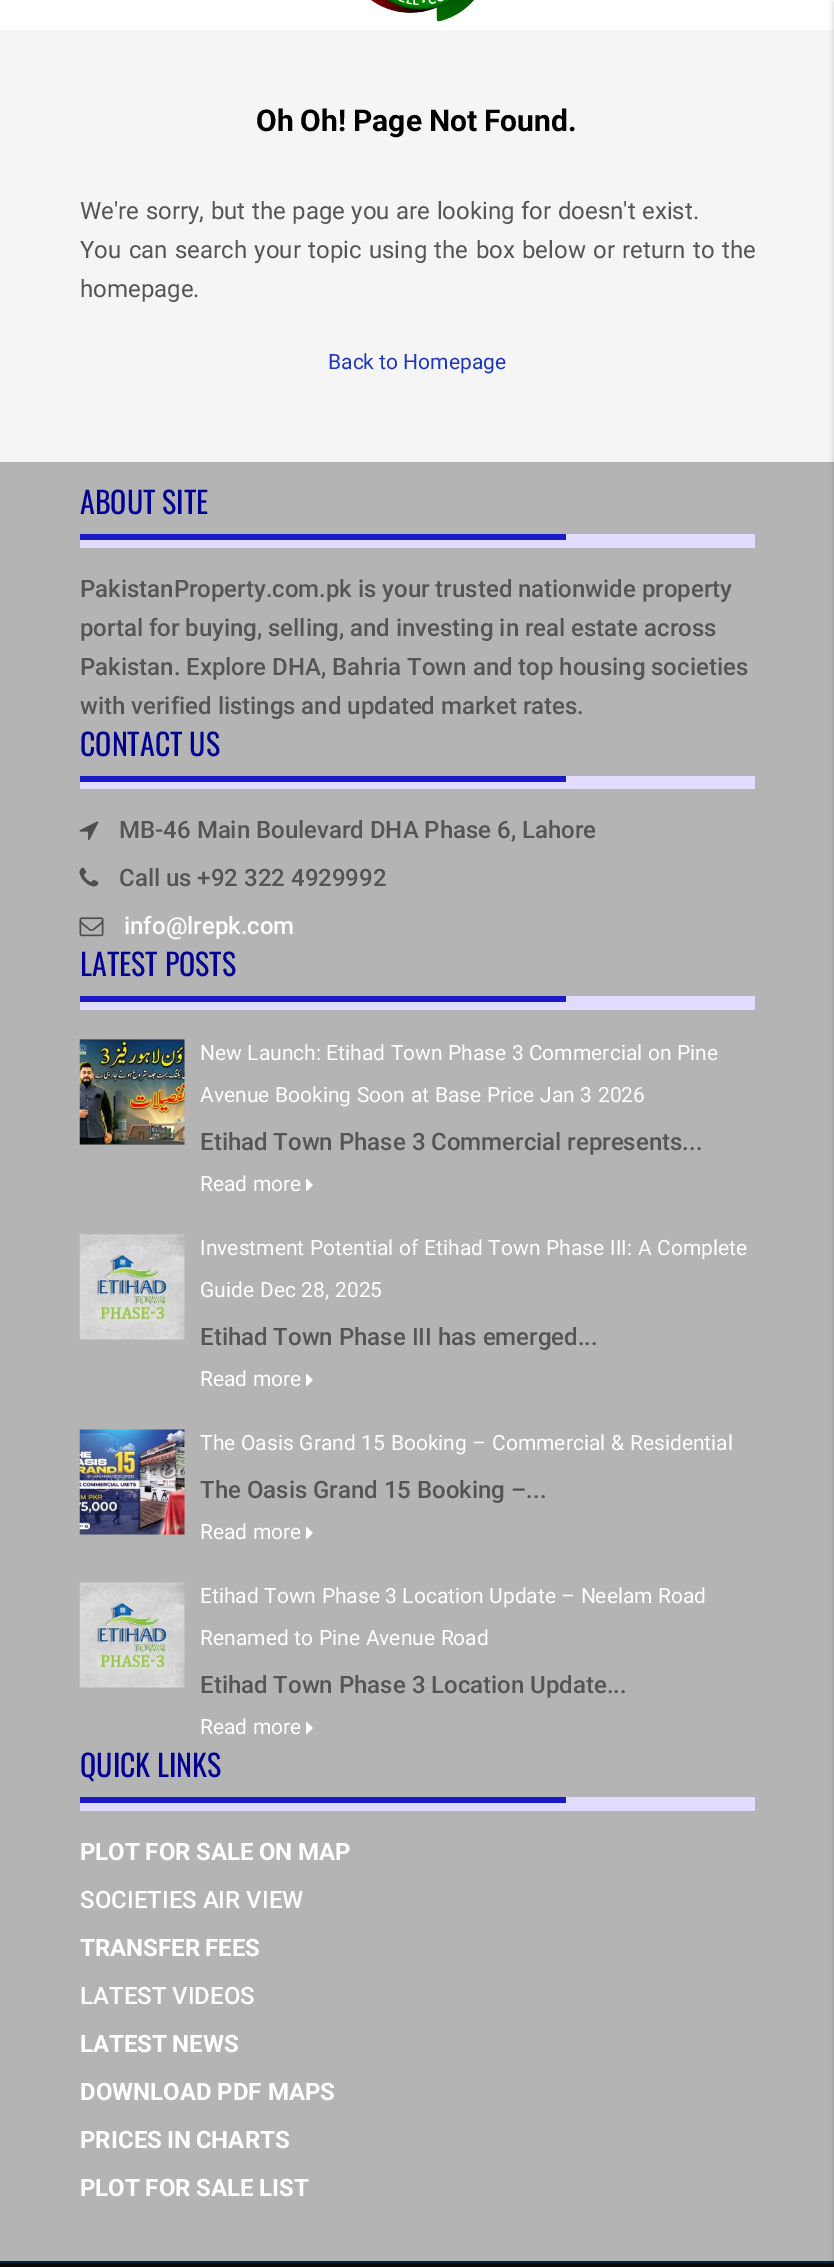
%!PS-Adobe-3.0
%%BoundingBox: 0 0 834 2267
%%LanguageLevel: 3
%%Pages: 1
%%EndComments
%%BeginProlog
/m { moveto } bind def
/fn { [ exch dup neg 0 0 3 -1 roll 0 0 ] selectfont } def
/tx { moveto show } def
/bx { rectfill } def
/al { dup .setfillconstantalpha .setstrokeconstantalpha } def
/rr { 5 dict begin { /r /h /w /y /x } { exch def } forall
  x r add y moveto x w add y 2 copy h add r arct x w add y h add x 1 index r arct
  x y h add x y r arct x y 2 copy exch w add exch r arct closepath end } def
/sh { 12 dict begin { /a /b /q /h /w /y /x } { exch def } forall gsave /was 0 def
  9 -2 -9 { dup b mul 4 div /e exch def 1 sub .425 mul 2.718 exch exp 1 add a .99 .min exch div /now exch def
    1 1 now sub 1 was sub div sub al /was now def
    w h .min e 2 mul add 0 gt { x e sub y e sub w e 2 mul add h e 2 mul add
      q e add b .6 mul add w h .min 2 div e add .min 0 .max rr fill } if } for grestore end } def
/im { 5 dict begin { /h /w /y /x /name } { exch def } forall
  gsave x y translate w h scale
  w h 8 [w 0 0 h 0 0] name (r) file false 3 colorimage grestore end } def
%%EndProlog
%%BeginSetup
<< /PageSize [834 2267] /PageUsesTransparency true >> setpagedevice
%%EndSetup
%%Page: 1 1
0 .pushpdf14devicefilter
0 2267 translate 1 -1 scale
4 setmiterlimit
0.961 setgray
0 0 834 2267 bx
1 setgray
0 0 834 30 bx
(image0.raw) 371 0 104 22 im
/Roboto-Bold 30 fn
0 setgray
256 131 m -0.5 0 32 (Oh Oh! Page Not Found.) widthshow
/Roboto-Regular 24 fn
0.333 setgray
80 219 m 0.6 0 32 (We're sorry, but the page you are looking for doesn't exist.) widthshow
80 258 m 1.4 0 32 (You can search your topic using the box below or return to the) widthshow
(homepage.) 80 297 tx
/Roboto-Regular 21 fn
0.118 0.212 0.749 setrgbcolor
(Back to Homepage) 328 369 tx
0.706 setgray
0 462 834 1799 bx
0.035 setgray
0 2263 834 4 bx
0 0.141 0.247 setrgbcolor
0 2261 834 2 bx
0 setgray
834 3 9 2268 0 3 0.2 sh
0.882 0.859 1 setrgbcolor
80 534 675 14 bx
0.11 0.098 0.78 setrgbcolor
80 534 486 6 bx
/Oswald-Regular 30 fn
0.008 0 0.576 setrgbcolor
(ABOUT SITE) 80 514 tx
/Roboto-Medium 24 fn
0.333 setgray
(PakistanProperty.com.pk is your trusted nationwide property) 80 597 tx
(portal for buying, selling, and investing in real estate across) 80 636 tx
(Pakistan. Explore DHA, Bahria Town and top housing societies) 80 675 tx
(with verified listings and updated market rates.) 80 714 tx
0.882 0.859 1 setrgbcolor
80 776 675 13 bx
0.11 0.098 0.78 setrgbcolor
80 776 486 6 bx
/Oswald-Regular 30 fn
0.008 0 0.576 setrgbcolor
(CONTACT US) 80 756 tx
(image1.raw) 79 821 20 20 im
/Roboto-Medium 24 fn
0.333 setgray
(MB-46 Main Boulevard DHA Phase 6, Lahore) 119 838 tx
(image2.raw) 79 867 20 20 im
(Call us +92 322 4929992) 119 886 tx
(image3.raw) 79 917 25 20 im
1 setgray
(info@lrepk.com) 124 934 tx
0.882 0.859 1 setrgbcolor
80 996 675 14 bx
0.11 0.098 0.78 setrgbcolor
80 996 486 6 bx
/Oswald-Regular 30 fn
0.008 0 0.576 setrgbcolor
(LATEST POSTS) 80 976 tx
(image4.raw) 79 1039 106 106 im
/Roboto-Regular 21 fn
1 setgray
200 1060 m 0.25 0 32 (New Launch: Etihad Town Phase 3 Commercial on Pine) widthshow
200 1102 m 0.5 0 32 (Avenue Booking Soon at Base Price Jan 3 2026) widthshow
/Roboto-Medium 24 fn
0.333 setgray
(Etihad Town Phase 3 Commercial represents...) 200 1150 tx
/Roboto-Regular 21 fn
1 setgray
(Read more) 200 1191 tx
(image5.raw) 306 1179 7 12 im
(image6.raw) 79 1234 106 106 im
200 1255 m 0.5 0 32 (Investment Potential of Etihad Town Phase III: A Complete) widthshow
200 1297 m 0.6 0 32 (Guide Dec 28, 2025) widthshow
/Roboto-Medium 24 fn
0.333 setgray
(Etihad Town Phase III has emerged...) 200 1345 tx
/Roboto-Regular 21 fn
1 setgray
(Read more) 200 1386 tx
(image5.raw) 306 1374 7 12 im
(image7.raw) 79 1429 106 106 im
200 1450 m 0.5 0 32 (The Oasis Grand 15 Booking – Commercial & Residential) widthshow
/Roboto-Medium 24 fn
0.333 setgray
(The Oasis Grand 15 Booking –...) 200 1498 tx
/Roboto-Regular 21 fn
1 setgray
(Read more) 200 1539 tx
(image5.raw) 306 1527 7 12 im
(image8.raw) 79 1582 106 106 im
200 1603 m 0.25 0 32 (Etihad Town Phase 3 Location Update – Neelam Road) widthshow
200 1645 m 0.5 0 32 (Renamed to Pine Avenue Road) widthshow
/Roboto-Medium 24 fn
0.333 setgray
(Etihad Town Phase 3 Location Update...) 200 1693 tx
/Roboto-Regular 21 fn
1 setgray
(Read more) 200 1734 tx
(image5.raw) 306 1722 7 12 im
0.882 0.859 1 setrgbcolor
80 1797 675 14 bx
0.11 0.098 0.78 setrgbcolor
80 1797 486 6 bx
/Oswald-Regular 30 fn
0.008 0 0.576 setrgbcolor
(QUICK LINKS) 80 1777 tx
/Roboto-Bold 24 fn
1 setgray
80 1860 m -0.5 0 32 (PLOT FOR SALE ON MAP) widthshow
/Roboto-Medium 24 fn
(SOCIETIES AIR VIEW) 80 1908 tx
/Roboto-Bold 24 fn
80 1956 m -1 0 32 (TRANSFER FEES) widthshow
/Roboto-Medium 24 fn
(LATEST VIDEOS) 80 2004 tx
/Roboto-Bold 24 fn
80 2052 m -1 0 32 (LATEST NEWS) widthshow
(DOWNLOAD PDF MAPS) 80 2100 tx
80 2148 m -1 0 32 (PRICES IN CHARTS) widthshow
80 2196 m -0.5 0 32 (PLOT FOR SALE LIST) widthshow
.poppdf14devicefilter showpage
%%EOF
